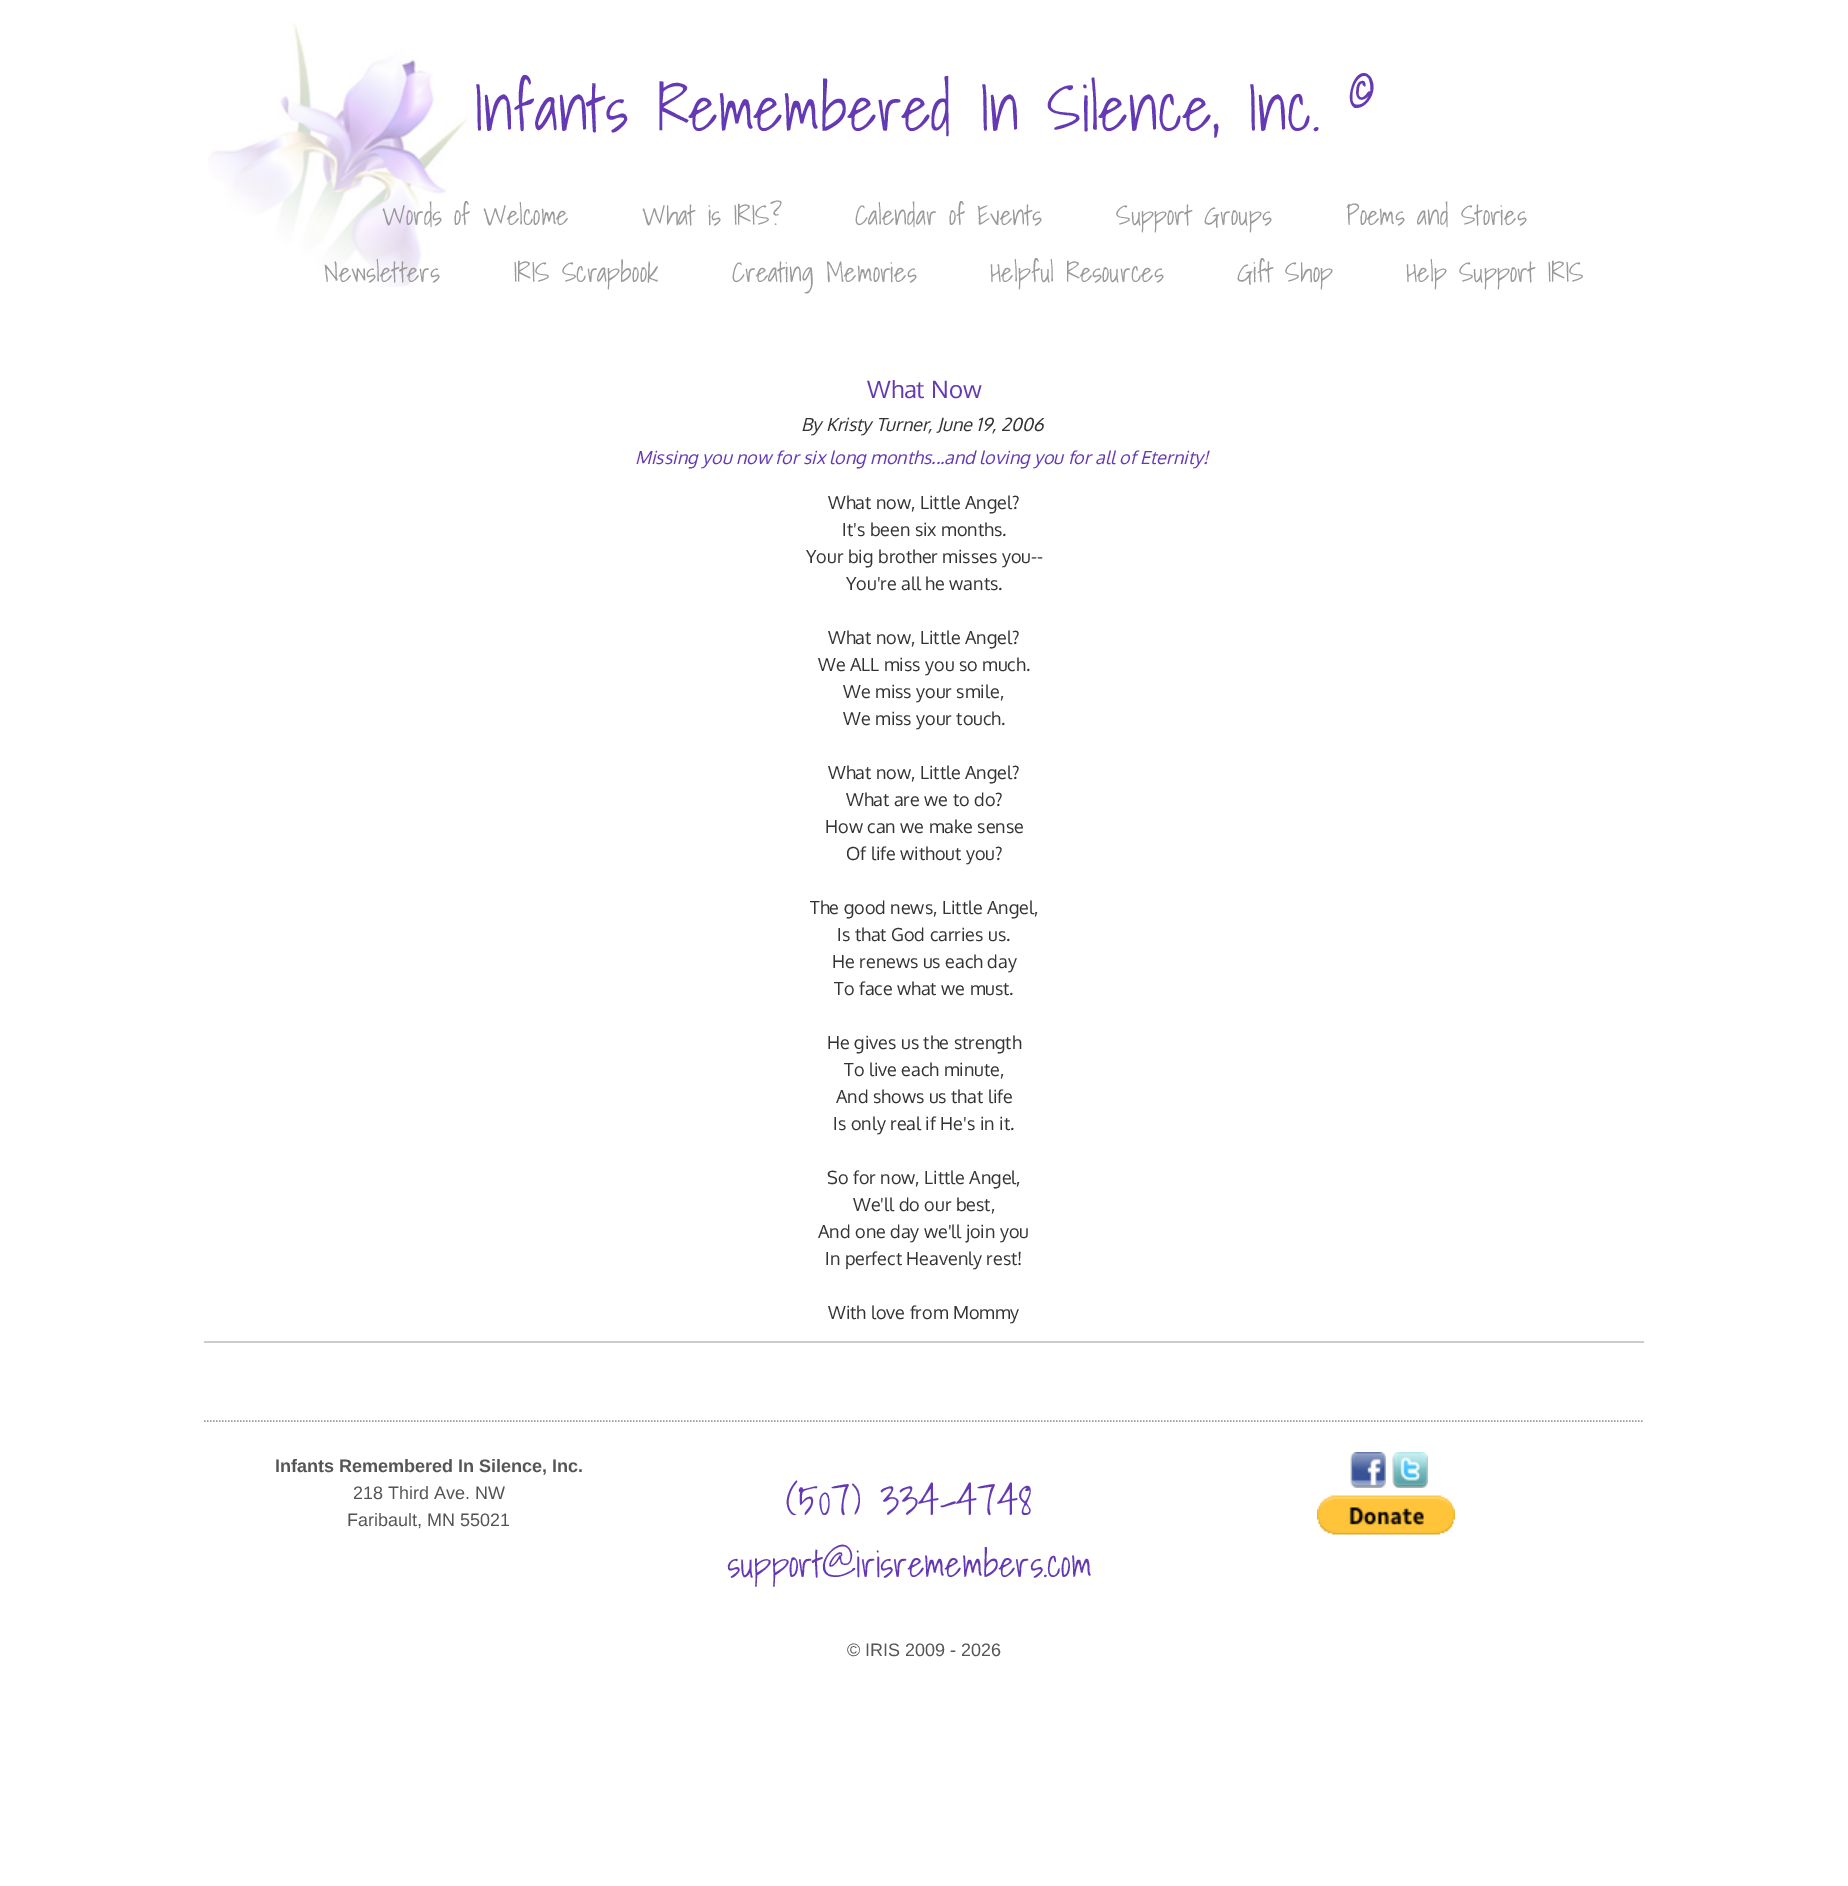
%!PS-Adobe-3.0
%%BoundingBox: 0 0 1848 1886
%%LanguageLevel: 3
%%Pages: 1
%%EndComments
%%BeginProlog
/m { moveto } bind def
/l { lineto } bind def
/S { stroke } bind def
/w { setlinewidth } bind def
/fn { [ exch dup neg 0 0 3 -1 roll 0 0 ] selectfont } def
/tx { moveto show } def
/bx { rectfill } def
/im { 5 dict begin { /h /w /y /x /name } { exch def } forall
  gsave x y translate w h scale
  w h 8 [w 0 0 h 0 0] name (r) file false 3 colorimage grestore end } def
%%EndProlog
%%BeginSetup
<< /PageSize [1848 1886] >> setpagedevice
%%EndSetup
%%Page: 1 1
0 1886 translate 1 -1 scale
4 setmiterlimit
1 setgray
0 0 1848 1886 bx
(image0.raw) 208 23 260 264 im
/ShadowsIntoLight-Light 63 fn
0.392 0.224 0.702 setrgbcolor
(Infants Remembered In Silence, Inc.) 473 131 tx
/ShadowsIntoLight-Light 52 fn
(©) 1349 108 tx
/ShadowsIntoLight-Light 27 fn
0.6 setgray
(Words of Welcome) 382 225 tx
(What is IRIS?) 642 225 tx
(Calendar of Events) 855 225 tx
(Support Groups) 1116 225 tx
(Poems and Stories) 1346 225 tx
(Newsletters) 324 282 tx
(IRIS Scrapbook) 513 282 tx
(Creating Memories) 732 282 tx
(Helpful Resources) 990 282 tx
(Gift Shop) 1237 282 tx
(Help Support IRIS) 1406 282 tx
/Oxygen-Regular 24 fn
0.392 0.224 0.702 setrgbcolor
(What Now) 867 398 tx
/Oxygen-Italic 18 fn
0.2 setgray
(By Kristy Turner, June 19, 2006) 801 431 tx
0.392 0.224 0.702 setrgbcolor
(Missing you now for six long months...and loving you for all of Eternity!) 635 464 tx
0.8 setgray
204 1341 1440 2 bx
/Oxygen-Regular 18 fn
0.2 setgray
(What now, Little Angel?) 828 509 tx
(It's been six months.) 842 536 tx
(Your big brother misses you--) 806 563 tx
(You're all he wants.) 846 590 tx
(What now, Little Angel?) 828 644 tx
(We ALL miss you so much.) 818 671 tx
(We miss your smile,) 843 698 tx
(We miss your touch.) 843 725 tx
(What now, Little Angel?) 828 779 tx
(What are we to do?) 846 806 tx
(How can we make sense) 825 833 tx
(Of life without you?) 846 860 tx
(The good news, Little Angel,) 810 914 tx
(Is that God carries us.) 837 941 tx
(He renews us each day) 832 968 tx
(To face what we must.) 834 995 tx
(He gives us the strength) 827 1049 tx
(To live each minute,) 844 1076 tx
(And shows us that life) 836 1103 tx
(Is only real if He's in it.) 833 1130 tx
(So for now, Little Angel,) 827 1184 tx
(We'll do our best,) 853 1211 tx
(And one day we'll join you) 818 1238 tx
(In perfect Heavenly rest!) 825 1265 tx
(With love from Mommy) 828 1319 tx
0.6 setgray
1.5 w
[1.5 1.5] 0 setdash
204 1421 m 1644 1421 l S
/LiberationSans-Bold 18 fn
0.333 setgray
(Infants Remembered In Silence, Inc.) 275 1472 tx
/LiberationSans-Regular 18 fn
(218 Third Ave. NW) 353 1499 tx
(Faribault, MN 55021) 347 1526 tx
/ShadowsIntoLight-Light 42 fn
0.392 0.224 0.702 setrgbcolor
(\(507\) 334-4748) 786 1515 tx
/ShadowsIntoLight-Light 36 fn
(support@irisremembers.com) 727 1577 tx
(image1.raw) 1350 1452 36 36 im
(image2.raw) 1392 1452 36 36 im
(image3.raw) 1317 1495 138 40 im
/LiberationSans-Regular 18 fn
0.333 setgray
(© IRIS 2009 - 2026) 847 1656 tx
showpage
%%EOF
